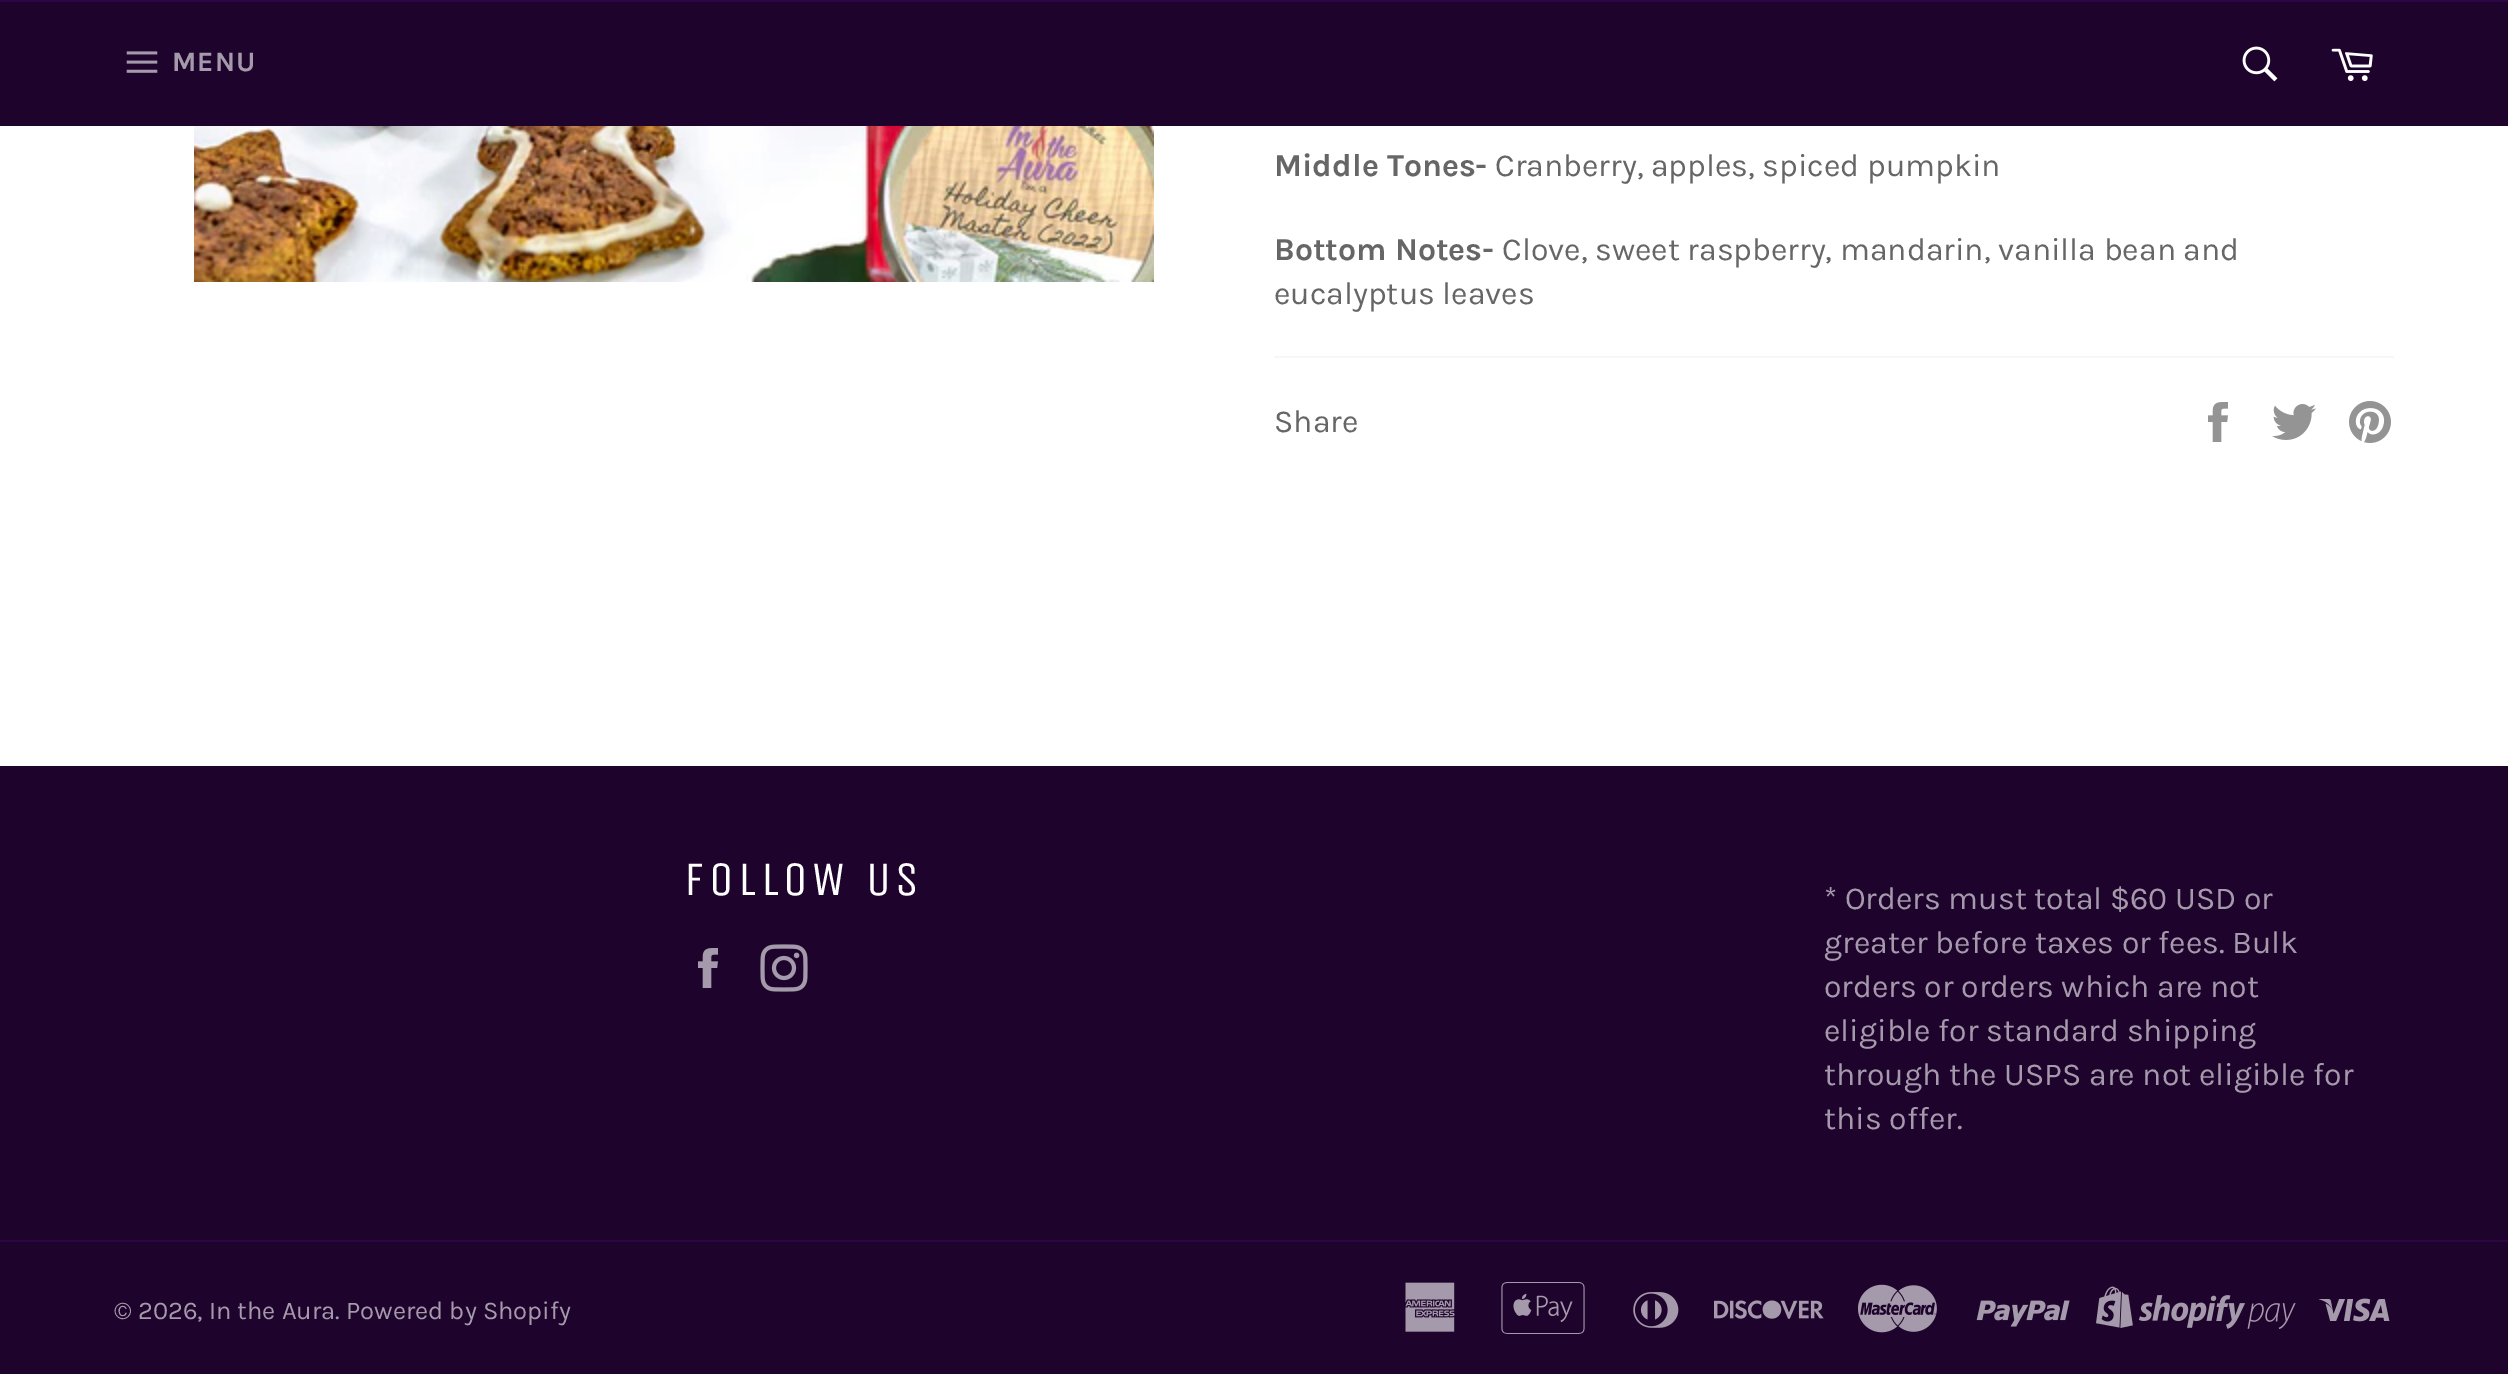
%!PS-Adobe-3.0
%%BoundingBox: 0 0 2508 1374
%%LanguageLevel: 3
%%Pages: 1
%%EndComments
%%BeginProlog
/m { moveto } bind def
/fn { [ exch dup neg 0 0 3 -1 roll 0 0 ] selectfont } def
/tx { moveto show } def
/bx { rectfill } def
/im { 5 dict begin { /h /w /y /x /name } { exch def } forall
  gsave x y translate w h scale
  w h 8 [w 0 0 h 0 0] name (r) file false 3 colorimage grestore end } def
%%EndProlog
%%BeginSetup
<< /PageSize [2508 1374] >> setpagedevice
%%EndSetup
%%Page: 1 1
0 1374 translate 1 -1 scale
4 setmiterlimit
1 setgray
0 0 2508 1374 bx
0.118 0.012 0.173 setrgbcolor
0 2 2508 124 bx
0.18 0.02 0.267 setrgbcolor
0 0 2508 2 bx
(image0.raw) 126 51 32 22 im
/Karla-Bold 28 fn
0.647 0.604 0.671 setrgbcolor
172 71 m 1 0 (MENU) ashow
(image1.raw) 2242 46 36 36 im
(image2.raw) 2331 48 42 33 im
(image3.raw) 194 126 960 156 im
/Karla-Bold 32 fn
0.4 setgray
(Middle Tones-) 1274 176 tx
/Karla-Regular 32 fn
(Cranberry, apples, spiced pumpkin) 1495 176 tx
/Karla-Bold 32 fn
(Bottom Notes-) 1274 260 tx
/Karla-Regular 32 fn
(Clove, sweet raspberry, mandarin, vanilla bean and) 1502 260 tx
(eucalyptus leaves) 1274 304 tx
0.969 setgray
1274 356 1120 2 bx
0.4 setgray
(Share) 1274 432 tx
(image4.raw) 2208 402 20 40 im
(image5.raw) 2272 404 44 36 im
(image6.raw) 2349 401 42 42 im
0.118 0.012 0.173 setrgbcolor
0 766 2508 608 bx
/UnicaOne-Regular 48 fn
1 setgray
684 895 m 4.75 0 (FOLLOW US) ashow
(image7.raw) 698 948 20 40 im
(image8.raw) 760 944 48 48 im
/Karla-Regular 32 fn
0.647 0.604 0.671 setrgbcolor
(* Orders must total $60 USD or) 1824 909 tx
(greater before taxes or fees. Bulk) 1824 953 tx
(orders or orders which are not) 1824 997 tx
(eligible for standard shipping) 1824 1041 tx
(through the USPS are not eligible for) 1824 1085 tx
(this offer.) 1824 1129 tx
0.18 0.02 0.267 setrgbcolor
0 1240 2508 2 bx
/Karla-Regular 25.6 fn
0.647 0.604 0.671 setrgbcolor
(© 2026, In the Aura. Powered by Shopify) 114 1319 tx
(image9.raw) 1405 1282 50 50 im
(image10.raw) 1501 1282 84 52 im
(image11.raw) 1633 1292 46 36 im
(image12.raw) 1714 1300 110 19 im
(image13.raw) 1858 1284 79 49 im
(image14.raw) 1976 1300 94 27 im
(image15.raw) 2096 1286 200 43 im
(image16.raw) 2319 1298 71 24 im
showpage
%%EOF
